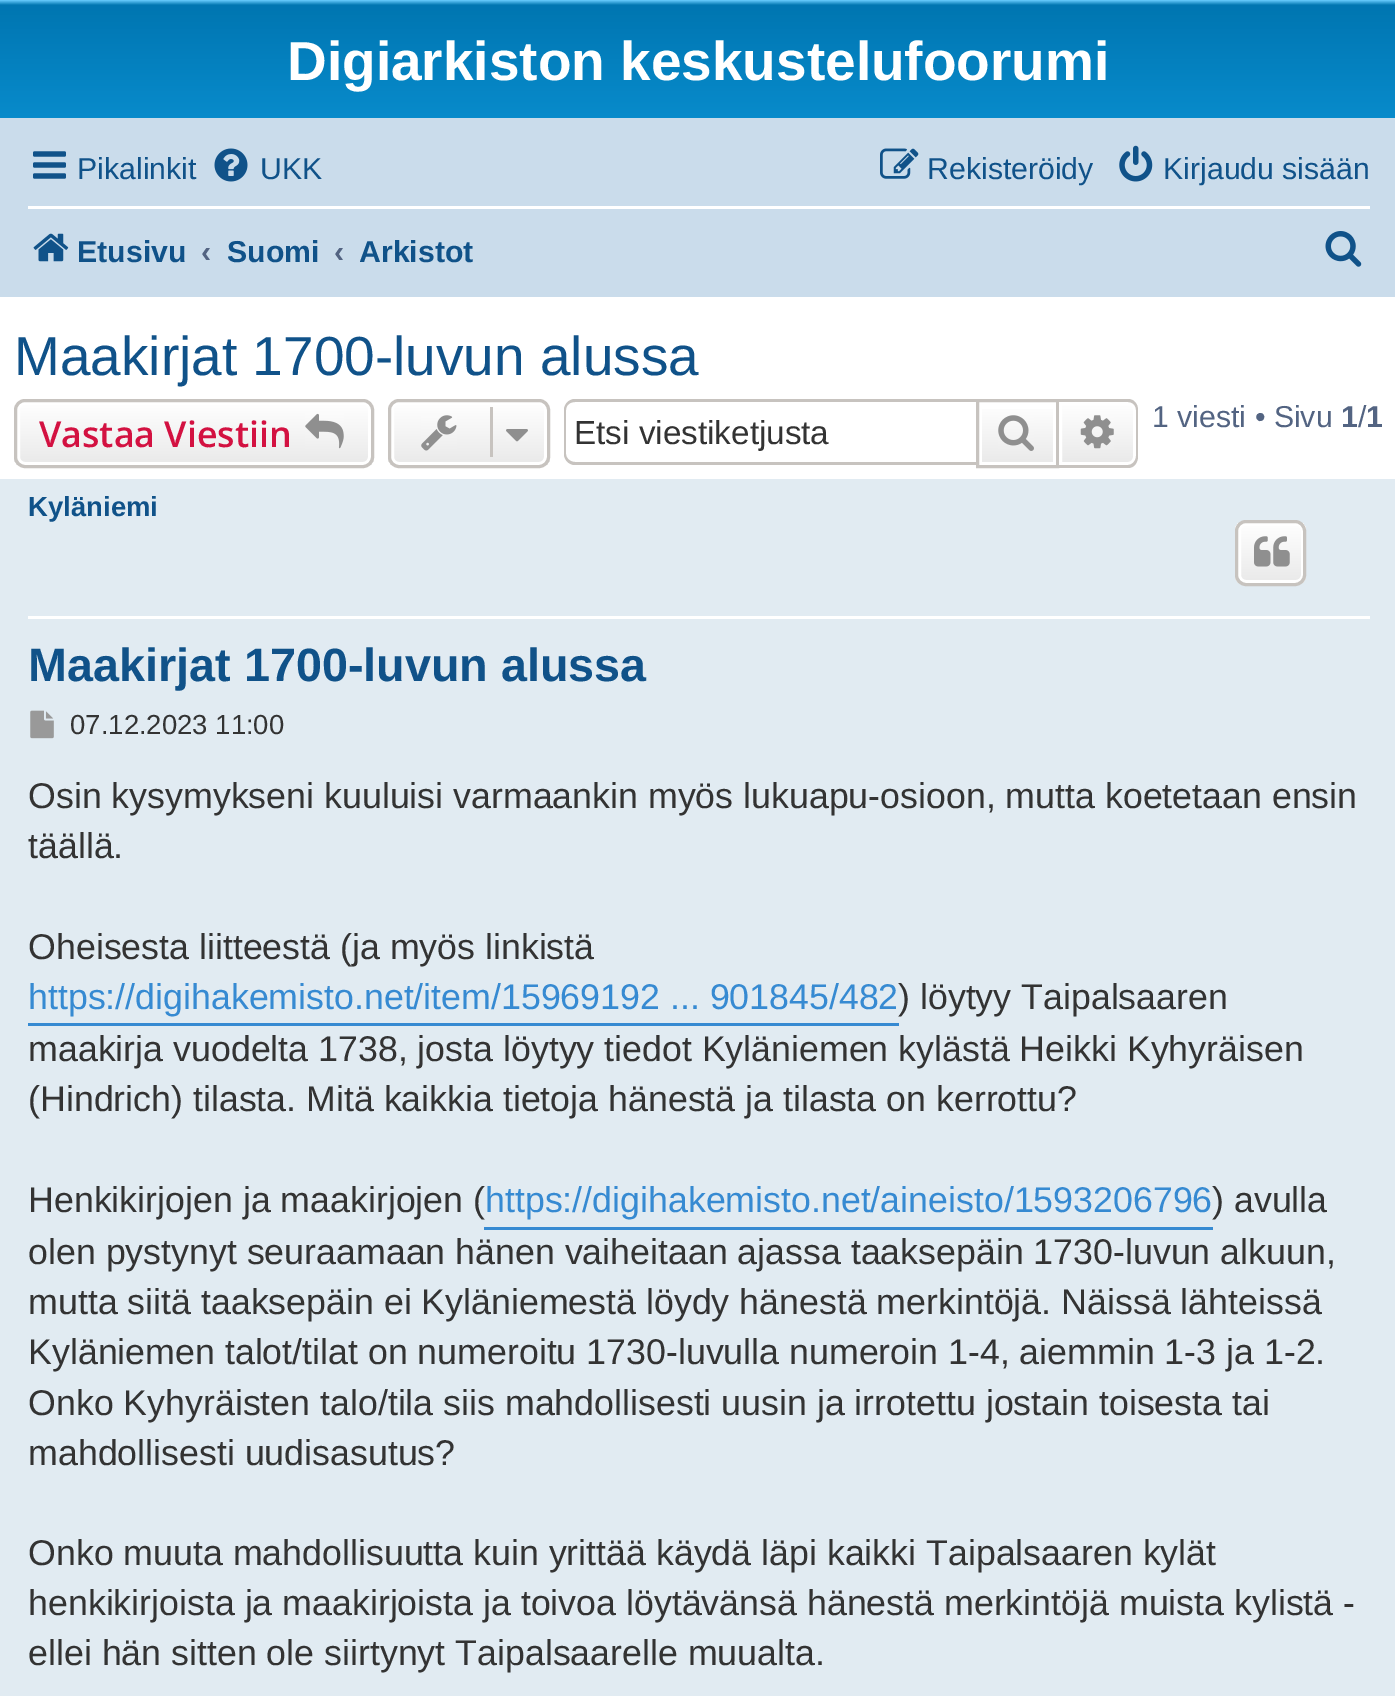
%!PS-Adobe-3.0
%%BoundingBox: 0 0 1395 1696
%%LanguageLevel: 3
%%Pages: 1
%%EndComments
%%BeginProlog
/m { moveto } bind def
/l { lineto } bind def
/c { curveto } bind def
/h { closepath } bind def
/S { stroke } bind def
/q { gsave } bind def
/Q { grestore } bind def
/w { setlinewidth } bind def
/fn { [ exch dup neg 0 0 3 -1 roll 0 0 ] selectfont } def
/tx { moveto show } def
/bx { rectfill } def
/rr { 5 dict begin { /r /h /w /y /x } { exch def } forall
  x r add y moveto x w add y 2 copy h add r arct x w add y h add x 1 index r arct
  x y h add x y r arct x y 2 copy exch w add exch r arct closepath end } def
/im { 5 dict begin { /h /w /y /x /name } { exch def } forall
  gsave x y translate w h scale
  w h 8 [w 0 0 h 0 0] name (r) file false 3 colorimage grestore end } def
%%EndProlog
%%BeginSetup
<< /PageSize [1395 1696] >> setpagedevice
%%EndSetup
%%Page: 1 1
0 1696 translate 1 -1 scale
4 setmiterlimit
1 setgray
0 0 1395 1696 bx
q 0 0 m 1395 0 l 1395 118 l 0 118 l h clip newpath
<< /ShadingType 2 /ColorSpace /DeviceRGB /Coords [699 0 699 253] /Extend [true true] /Function << /FunctionType 3 /Domain [0 1] /Functions [<< /FunctionType 2 /Domain [0 1] /C0 [0.416 0.808 1] /C1 [0 0.463 0.694] /N 1 >> << /FunctionType 2 /Domain [0 1] /C0 [0 0.463 0.694] /C1 [0.071 0.639 0.922] /N 1 >>] /Bounds [0.02] /Encode [0 1 0 1] >> >> shfill Q
/LiberationSans-Bold 55 fn
(Digiarkiston keskustelufoorumi) 287 80 tx
0.792 0.863 0.922 setrgbcolor
0 118 1395 179 bx
(image0.raw) 33 151 33 28 im
/LiberationSans-Regular 30.25 fn
0.063 0.322 0.537 setrgbcolor
(Pikalinkit) 77 179 tx
(image1.raw) 214 148 34 34 im
(UKK) 260 179 tx
(image2.raw) 880 148 39 31 im
(Rekisteröidy) 927 179 tx
(image3.raw) 1119 145 34 37 im
(Kirjaudu sisään) 1163 179 tx
1 setgray
28 206 1342 3 bx
(image4.raw) 33 233 36 29 im
/LiberationSans-Bold 30.25 fn
0.063 0.322 0.537 setrgbcolor
(Etusivu) 77 262 tx
0.325 0.392 0.51 setrgbcolor
(‹) 201 262 tx
0.063 0.322 0.537 setrgbcolor
(Suomi) 227 262 tx
0.325 0.392 0.51 setrgbcolor
(‹) 334 262 tx
q
360 217 113 66 rectclip
0.063 0.322 0.537 setrgbcolor
(Arkistot) 359 262 tx
Q
(image5.raw) 1325 231 37 36 im
/LiberationSans-Regular 55 fn
0.063 0.322 0.537 setrgbcolor
(Maakirjat 1700-luvun alussa) 14 375 tx
q
388 399 162 69 11 rr clip newpath
q 388 402 m 550 402 l 550 465 l 388 465 l h clip newpath
<< /ShadingType 2 /ColorSpace /DeviceRGB /Coords [469 402 469 465] /Extend [true true] /Function << /FunctionType 2 /Domain [0 1] /C0 [1 1 1] /C1 [0.914 0.914 0.914] /N 1 >> >> shfill Q
Q
1 setgray
3 w
392.5 403.5 153 60 6.5 rr S
0.78 0.765 0.749 setrgbcolor
389.5 400.5 159 66 9.5 rr S
(image6.raw) 421 415 36 36 im
490 407 3 50 bx
(image7.raw) 506 429 22 13 im
/LiberationSans-Regular 30.25 fn
0.325 0.392 0.51 setrgbcolor
(1 viesti • Sivu) 1152 427 tx
/LiberationSans-Bold 30.25 fn
(1 1) 1341 427 tx
/LiberationSans-Regular 30.25 fn
(/) 1358 427 tx
q
14 399 360 69 11 rr clip newpath
q 14 402 m 374 402 l 374 465 l 14 465 l h clip newpath
<< /ShadingType 2 /ColorSpace /DeviceRGB /Coords [194 402 194 465] /Extend [true true] /Function << /FunctionType 2 /Domain [0 1] /C0 [1 1 1] /C1 [0.914 0.914 0.914] /N 1 >> >> shfill Q
Q
1 setgray
18.5 403.5 351 60 6.5 rr S
0.78 0.765 0.749 setrgbcolor
15.5 400.5 357 66 9.5 rr S
/OpenSans-SemiBold 35.75 fn
0.827 0.067 0.255 setrgbcolor
(Vastaa Viestiin) 39 447 tx
(image8.raw) 305 413 39 36 im
0.78 0.765 0.749 setrgbcolor
575 399 m 976 399 l 976 465 l 575 465 l 569 465 564 460 564 454 c 564 410 l 564 404 569 399 575 399 c h 575 402 m 976 402 l 976 462 l 575 462 l 570 462 566 458 566 454 c 566 410 l 566 405 570 402 575 402 c h eofill
/LiberationSans-Regular 33.25 fn
0.2 setgray
(Etsi viestiketjusta) 574 444 tx
q 982 409 m 1053 409 l 1053 462 l 982 462 l h clip newpath
<< /ShadingType 2 /ColorSpace /DeviceRGB /Coords [1018 402 1018 465] /Extend [true true] /Function << /FunctionType 2 /Domain [0 1] /C0 [1 1 1] /C1 [0.914 0.914 0.914] /N 1 >> >> shfill Q
0.78 0.765 0.749 setrgbcolor
977.5 400.5 80 66 rectstroke
(image9.raw) 998 415 36 36 im
q 1060.5 403.5 m 1128 403.5 l 1131.5 403.5 1134.5 406.5 1134.5 410 c 1134.5 457 l 1134.5 460.5 1131.5 463.5 1128 463.5 c 1060.5 463.5 l h clip newpath
<< /ShadingType 2 /ColorSpace /DeviceRGB /Coords [1097 402 1097 465] /Extend [true true] /Function << /FunctionType 2 /Domain [0 1] /C0 [1 1 1] /C1 [0.914 0.914 0.914] /N 1 >> >> shfill Q
1 setgray
1060.5 403.5 m 1128 403.5 l 1131.5 403.5 1134.5 406.5 1134.5 410 c 1134.5 457 l 1134.5 460.5 1131.5 463.5 1128 463.5 c 1060.5 463.5 l h S
0.78 0.765 0.749 setrgbcolor
1059 399 m 1128 399 l 1134 399 1138 404 1138 410 c 1138 456 l 1138 463 1134 468 1128 468 c 1059 468 l h 1059 402 m 1128 402 l 1132 402 1136 405 1136 410 c 1136 456 l 1136 461 1132 465 1128 465 c 1059 465 l h eofill
(image10.raw) 1080 415 34 34 im
0.882 0.922 0.949 setrgbcolor
0 479 1395 1217 bx
1 setgray
28 616 1342 3 bx
/LiberationSans-Bold 27.5 fn
0.063 0.322 0.537 setrgbcolor
(Kyläniemi) 28 516 tx
q
1235 520 71 66 11 rr clip newpath
q 1235 523 m 1306 523 l 1306 583 l 1235 583 l h clip newpath
<< /ShadingType 2 /ColorSpace /DeviceRGB /Coords [1271 523 1271 583] /Extend [true true] /Function << /FunctionType 2 /Domain [0 1] /C0 [1 1 1] /C1 [0.914 0.914 0.914] /N 1 >> >> shfill Q
Q
1 setgray
1239.5 524.5 63 57 6.5 rr S
0.78 0.765 0.749 setrgbcolor
1236.5 521.5 68 63 9.5 rr S
(image11.raw) 1254 536 36 31 im
/LiberationSans-Bold 46.75 fn
0.063 0.322 0.537 setrgbcolor
(Maakirjat 1700-luvun alussa) 28 681 tx
(image12.raw) 30 710 24 29 im
/LiberationSans-Regular 27.5 fn
0.2 setgray
(07.12.2023 11:00) 70 734 tx
/LiberationSans-Regular 35.75 fn
(Osin kysymykseni kuuluisi varmaankin myös lukuapu-osioon, mutta koetetaan ensin) 28 808 tx
(täällä.) 28 858 tx
(Oheisesta liitteestä \(ja myös linkistä) 28 959 tx
0.212 0.541 0.824 setrgbcolor
28 1023 871 3 bx
(https://digihakemisto.net/item/15969192 ... 901845/482) 28 1009 tx
0.2 setgray
(\) löytyy Taipalsaaren) 898 1009 tx
(maakirja vuodelta 1738, josta löytyy tiedot Kyläniemen kylästä Heikki Kyhyräisen) 28 1061 tx
(\(Hindrich\) tilasta. Mitä kaikkia tietoja hänestä ja tilasta on kerrottu?) 28 1111 tx
(Henkikirjojen ja maakirjojen \() 28 1212 tx
0.212 0.541 0.824 setrgbcolor
484 1227 729 3 bx
(https://digihakemisto.net/aineisto/1593206796) 485 1212 tx
0.2 setgray
(\) avulla) 1212 1212 tx
(olen pystynyt seuraamaan hänen vaiheitaan ajassa taaksepäin 1730-luvun alkuun,) 28 1264 tx
(mutta siitä taaksepäin ei Kyläniemestä löydy hänestä merkintöjä. Näissä lähteissä) 28 1314 tx
(Kyläniemen talot/tilat on numeroitu 1730-luvulla numeroin 1-4, aiemmin 1-3 ja 1-2.) 28 1364 tx
(Onko Kyhyräisten talo/tila siis mahdollisesti uusin ja irrotettu jostain toisesta tai) 28 1415 tx
(mahdollisesti uudisasutus?) 28 1465 tx
(Onko muuta mahdollisuutta kuin yrittää käydä läpi kaikki Taipalsaaren kylät) 28 1565 tx
(henkikirjoista ja maakirjoista ja toivoa löytävänsä hänestä merkintöjä muista kylistä -) 28 1615 tx
(ellei hän sitten ole siirtynyt Taipalsaarelle muualta.) 28 1665 tx
showpage
%%EOF
